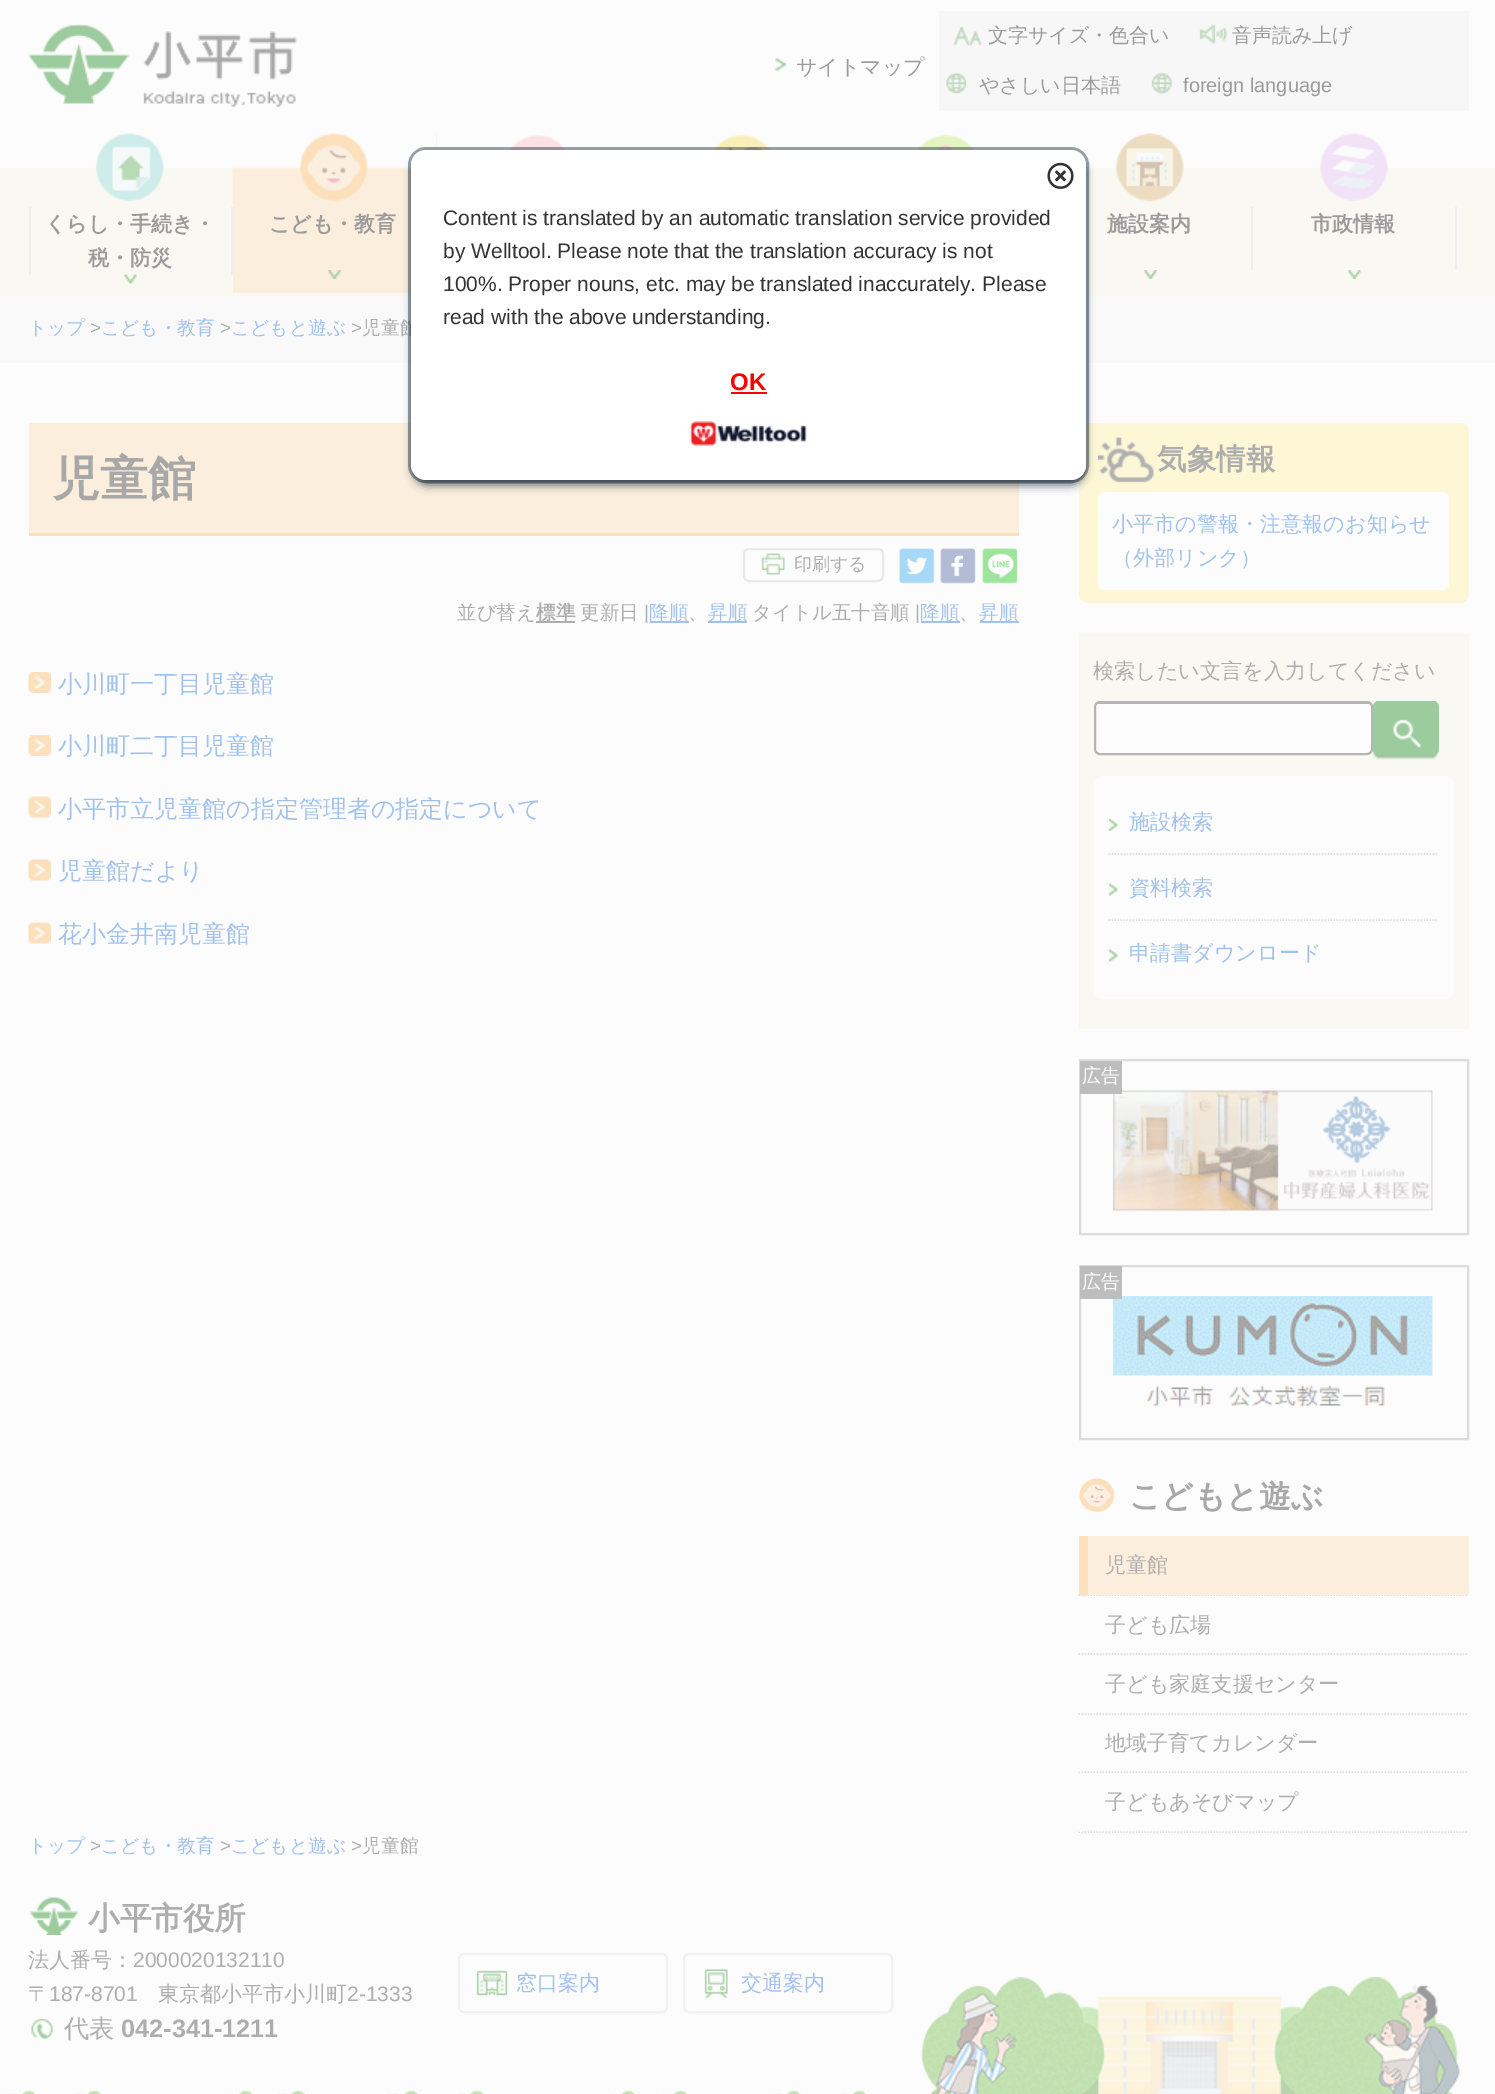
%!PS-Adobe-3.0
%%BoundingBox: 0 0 1495 2094
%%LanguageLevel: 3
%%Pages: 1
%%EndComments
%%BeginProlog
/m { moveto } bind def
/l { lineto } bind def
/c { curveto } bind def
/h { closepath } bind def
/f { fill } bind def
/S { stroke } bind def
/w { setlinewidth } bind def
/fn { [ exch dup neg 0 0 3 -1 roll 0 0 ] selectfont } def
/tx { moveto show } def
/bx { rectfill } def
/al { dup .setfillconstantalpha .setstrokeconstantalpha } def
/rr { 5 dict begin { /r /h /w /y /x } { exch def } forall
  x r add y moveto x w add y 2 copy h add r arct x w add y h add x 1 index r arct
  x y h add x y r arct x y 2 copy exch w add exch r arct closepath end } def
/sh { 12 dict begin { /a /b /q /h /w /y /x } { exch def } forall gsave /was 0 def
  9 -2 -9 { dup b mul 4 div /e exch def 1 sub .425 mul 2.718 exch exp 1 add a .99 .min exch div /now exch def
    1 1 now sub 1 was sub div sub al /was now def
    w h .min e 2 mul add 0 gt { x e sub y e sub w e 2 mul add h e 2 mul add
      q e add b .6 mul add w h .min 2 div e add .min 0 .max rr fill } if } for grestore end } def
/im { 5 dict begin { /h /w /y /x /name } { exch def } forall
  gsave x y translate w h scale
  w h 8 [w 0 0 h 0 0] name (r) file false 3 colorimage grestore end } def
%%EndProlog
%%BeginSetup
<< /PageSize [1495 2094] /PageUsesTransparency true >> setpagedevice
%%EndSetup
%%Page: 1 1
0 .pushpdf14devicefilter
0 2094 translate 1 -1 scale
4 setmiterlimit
0.992 0.988 0.988 setrgbcolor
0 0 1495 2094 bx
(image0.raw) 28 23 270 84 im
0.976 0.973 0.953 setrgbcolor
0 168 1495 129 bx
(image1.raw) 775 58 11 13 im
/WenQuanYiZenHei-Medium 21 fn
0.612 0.608 0.608 setrgbcolor
(サイトマップ) 796 74 tx
0.973 0.969 0.969 setrgbcolor
939 11 530 100 bx
(image2.raw) 953 26 29 20 im
/WenQuanYiZenHei-Medium 20 fn
0.612 0.608 0.608 setrgbcolor
(文字サイズ・色合い) 988 42 tx
(image3.raw) 1199 23 29 21 im
(音声読み上げ) 1232 42 tx
(image4.raw) 946 72 21 23 im
(やさしい日本語) 979 92 tx
(image5.raw) 1151 72 21 23 im
/LiberationSans-Regular 20 fn
(foreign language) 1183 92 tx
(image6.raw) 508 134 59 16 im
(image7.raw) 712 134 59 16 im
(image8.raw) 916 134 59 16 im
(image9.raw) 95 133 69 69 im
0.933 setgray
231 207 2 68 bx
29 207 2 68 bx
/WenQuanYiZenHei-Bold 21 fn
0.612 0.608 0.608 setrgbcolor
(くらし・手続き・) 45 231 tx
(税・防災) 88 265 tx
(image10.raw) 124 274 13 10 im
0.988 0.933 0.863 setrgbcolor
233 132 204 161 bx
(image11.raw) 232 132 205 72 im
0.612 0.608 0.608 setrgbcolor
(こども・教育) 269 231 tx
(image12.raw) 328 270 13 9 im
(image13.raw) 1115 133 69 69 im
0.933 setgray
1251 207 2 63 bx
0.612 0.608 0.608 setrgbcolor
(施設案内) 1107 231 tx
(image14.raw) 1144 270 13 9 im
(image15.raw) 1319 133 69 69 im
0.933 setgray
1455 207 2 63 bx
0.612 0.608 0.608 setrgbcolor
(市政情報) 1311 231 tx
(image14.raw) 1348 270 13 9 im
0.976 setgray
0 297 1495 66 bx
/WenQuanYiZenHei-Medium 18.75 fn
0.627 0.761 0.929 setrgbcolor
(トップ) 28 334 tx
/LiberationSans-Regular 18.75 fn
0.686 0.682 0.682 setrgbcolor
(>) 90 334 tx
/WenQuanYiZenHei-Medium 18.75 fn
0.627 0.761 0.929 setrgbcolor
(こども・教育) 101 334 tx
/LiberationSans-Regular 18.75 fn
0.686 0.682 0.682 setrgbcolor
(>) 220 334 tx
/WenQuanYiZenHei-Medium 18.75 fn
0.627 0.761 0.929 setrgbcolor
(こどもと遊ぶ) 231 334 tx
/LiberationSans-Regular 18.75 fn
0.686 0.682 0.682 setrgbcolor
(>) 351 334 tx
/WenQuanYiZenHei-Medium 18.75 fn
(児童館) 362 334 tx
0.988 0.933 0.863 setrgbcolor
29 423 990 110 bx
0.992 0.969 0.839 setrgbcolor
1079 423 390 180 9 rr f
(image24.raw) 1098 437 56 46 im
0.992 0.988 0.988 setrgbcolor
1098 492 351 98 6 rr f
0.024 0.094 0.173 setrgbcolor
413 158 672 327 14 4.5 0.65 sh
0.4 al
3 w
409.5 148.5 678 333 16.5 rr S
1 al
1 setgray
411 150 675 330 15 rr f
(image16.raw) 1047 162 27 27 im
/LiberationSans-Regular 21 fn
0.2 setgray
(Content is translated by an automatic translation service provided) 443 225 tx
(by Welltool. Please note that the translation accuracy is not) 443 258 tx
(100%. Proper nouns, etc. may be translated inaccurately. Please) 443 291 tx
(read with the above understanding.) 443 324 tx
/LiberationSans-Bold 24 fn
1 0 0 setrgbcolor
(OK) 730 390 tx
731 392 36 2 bx
(image17.raw) 689 421 118 25 im
0.988 0.878 0.737 setrgbcolor
29 533 990 3 bx
/WenQuanYiZenHei-Bold 48 fn
0.663 0.659 0.659 setrgbcolor
(児童館) 52 495 tx
0.914 setgray
2 w
744 549 139 32 5 rr S
(image18.raw) 761 553 24 22 im
/WenQuanYiZenHei-Medium 18 fn
0.686 0.682 0.682 setrgbcolor
(印刷する) 794 570 tx
(image19.raw) 899 548 36 36 im
(image20.raw) 940 548 36 36 im
(image21.raw) 982 548 36 36 im
/WenQuanYiZenHei-Medium 19.5 fn
(並び替え) 457 619 tx
536 621 39 2 bx
/WenQuanYiZenHei-Bold 19.5 fn
(標準) 536 619 tx
/WenQuanYiZenHei-Medium 19.5 fn
(更新日) 580 619 tx
/LiberationSans-Regular 19.5 fn
(|) 644 619 tx
0.627 0.761 0.929 setrgbcolor
650 621 39 2 bx
/WenQuanYiZenHei-Medium 19.5 fn
(降順) 649 619 tx
0.686 0.682 0.682 setrgbcolor
(、) 688 619 tx
0.627 0.761 0.929 setrgbcolor
708 621 39 2 bx
(昇順) 708 619 tx
0.686 0.682 0.682 setrgbcolor
(タイトル五十音順) 752 619 tx
/LiberationSans-Regular 19.5 fn
(|) 915 619 tx
0.627 0.761 0.929 setrgbcolor
921 621 39 2 bx
/WenQuanYiZenHei-Medium 19.5 fn
(降順) 920 619 tx
0.686 0.682 0.682 setrgbcolor
(、) 959 619 tx
0.627 0.761 0.929 setrgbcolor
980 621 39 2 bx
(昇順) 979 619 tx
(image22.raw) 28 672 23 21 im
/WenQuanYiZenHei-Medium 24 fn
(小川町一丁目児童館) 58 692 tx
(image22.raw) 28 735 23 21 im
(小川町二丁目児童館) 58 754 tx
(image23.raw) 28 796 23 22 im
(小平市立児童館の指定管理者の指定について) 58 817 tx
(image23.raw) 28 859 23 22 im
(児童館だより) 58 879 tx
(image23.raw) 28 922 23 22 im
(花小金井南児童館) 58 942 tx
/WenQuanYiZenHei-Bold 29.5 fn
0.686 0.682 0.682 setrgbcolor
(気象情報) 1157 469 tx
/WenQuanYiZenHei-Medium 21.1 fn
0.627 0.761 0.929 setrgbcolor
(小平市の警報・注意報のお知らせ) 1112 531 tx
(（外部リンク）) 1112 565 tx
0.976 0.973 0.953 setrgbcolor
1079 633 390 396 bx
0.686 0.682 0.682 setrgbcolor
(検索したい文言を入力してください) 1093 678 tx
0.992 0.988 0.988 setrgbcolor
1100 704 m 1366 704 l 1369 704 1371 705 1371 706 c 1371 748 l 1371 751 1369 753 1366 753 c 1100 753 l 1097 753 1095 751 1095 748 c 1095 706 l 1095 705 1097 704 1100 704 c h f
0.71 setgray
1095 702 277 52 5 rr S
1097 703 273 1 bx
0.612 0.761 0.612 setrgbcolor
1374 707 63 51 5 1 1 sh
0.612 0.796 0.616 setrgbcolor
1373 701 66 54 6 rr f
(image25.raw) 1393 719 28 29 im
1376 701 60 1 bx
0.992 0.988 0.988 setrgbcolor
1094 776 360 223 9 rr f
0.863 setgray
1.5 w
[1.5 1.5] 0 setdash
1108.5 854 m 1438.5 854 l S
(image26.raw) 1109 819 9 12 im
0.627 0.761 0.929 setrgbcolor
(施設検索) 1129 829 tx
0.863 setgray
1108.5 920 m 1438.5 920 l S
(image27.raw) 1109 883 9 13 im
0.627 0.761 0.929 setrgbcolor
(資料検索) 1129 895 tx
(image27.raw) 1109 949 9 13 im
(申請書ダウンロード) 1129 960 tx
0.863 setgray
2 w
[] 0 setdash
1080 1060 388 174 rectstroke
(image28.raw) 1113 1090 320 121 im
0.741 setgray
1080 1061 42 33 bx
/WenQuanYiZenHei-Medium 19 fn
0.992 0.988 0.988 setrgbcolor
(広告) 1082 1082 tx
0.863 setgray
1080 1266 388 173 rectstroke
(image29.raw) 1113 1296 320 112 im
0.741 setgray
1080 1266 42 33 bx
0.992 0.988 0.988 setrgbcolor
(広告) 1082 1288 tx
(image30.raw) 1079 1478 36 34 im
/WenQuanYiZenHei-Bold 31.75 fn
0.663 0.659 0.659 setrgbcolor
(こどもと遊ぶ) 1129 1507 tx
0.863 setgray
1.5 w
[1.5 1.5] 0 setdash
1078.5 1595 m 1468.5 1595 l S
0.988 0.933 0.863 setrgbcolor
1088 1536 381 59 bx
0.988 0.878 0.737 setrgbcolor
1079 1536 9 59 bx
/WenQuanYiZenHei-Medium 21.1 fn
0.686 0.682 0.682 setrgbcolor
(児童館) 1105 1572 tx
0.863 setgray
1078.5 1654 m 1468.5 1654 l S
0.686 0.682 0.682 setrgbcolor
(子ども広場) 1105 1632 tx
0.863 setgray
1078.5 1714 m 1468.5 1714 l S
0.686 0.682 0.682 setrgbcolor
(子ども家庭支援センター) 1105 1691 tx
0.863 setgray
1078.5 1772 m 1468.5 1772 l S
0.992 0.988 0.988 setrgbcolor
1079 1771 3 1 bx
0.686 0.682 0.682 setrgbcolor
(地域子育てカレンダー) 1105 1750 tx
0.863 setgray
1078.5 1832 m 1468.5 1832 l S
0.992 0.988 0.988 setrgbcolor
1079 1831 3 1 bx
0.686 0.682 0.682 setrgbcolor
(子どもあそびマップ) 1105 1809 tx
/WenQuanYiZenHei-Medium 18.75 fn
0.627 0.761 0.929 setrgbcolor
(トップ) 28 1852 tx
/LiberationSans-Regular 18.75 fn
0.686 0.682 0.682 setrgbcolor
(>) 90 1852 tx
/WenQuanYiZenHei-Medium 18.75 fn
0.627 0.761 0.929 setrgbcolor
(こども・教育) 101 1852 tx
/LiberationSans-Regular 18.75 fn
0.686 0.682 0.682 setrgbcolor
(>) 220 1852 tx
/WenQuanYiZenHei-Medium 18.75 fn
0.627 0.761 0.929 setrgbcolor
(こどもと遊ぶ) 231 1852 tx
/LiberationSans-Regular 18.75 fn
0.686 0.682 0.682 setrgbcolor
(>) 351 1852 tx
/WenQuanYiZenHei-Medium 18.75 fn
(児童館) 362 1852 tx
(image31.raw) 4 2090 1449 4 im
(image32.raw) 29 1897 50 38 im
/WenQuanYiZenHei-Bold 31.5 fn
(小平市役所) 88 1929 tx
/WenQuanYiZenHei-Medium 21 fn
(法人番号：) 28 1967 tx
/LiberationSans-Regular 21 fn
(2000020132110) 133 1967 tx
/WenQuanYiZenHei-Medium 21 fn
(〒) 28 2001 tx
/LiberationSans-Regular 21 fn
(187-8701) 49 2001 tx
/WenQuanYiZenHei-Medium 21 fn
(東京都小平市小川町) 158 2001 tx
/LiberationSans-Regular 21 fn
(2-1333) 347 2001 tx
(image33.raw) 31 2018 22 21 im
/WenQuanYiZenHei-Medium 25.25 fn
(代表) 64 2037 tx
/LiberationSans-Bold 25.25 fn
(042-341-1211) 121 2037 tx
(image34.raw) 476 1970 32 26 im
0.949 0.945 0.945 setrgbcolor
2 w
[] 0 setdash
459 1954 208 58 5 rr S
/WenQuanYiZenHei-Medium 21 fn
0.627 0.761 0.929 setrgbcolor
(窓口案内) 516 1990 tx
(image35.raw) 704 1969 24 30 im
0.949 0.945 0.945 setrgbcolor
684 1954 208 58 5 rr S
0.627 0.761 0.929 setrgbcolor
(交通案内) 741 1990 tx
(image36.raw) 920 1977 540 117 im
.poppdf14devicefilter showpage
%%EOF
